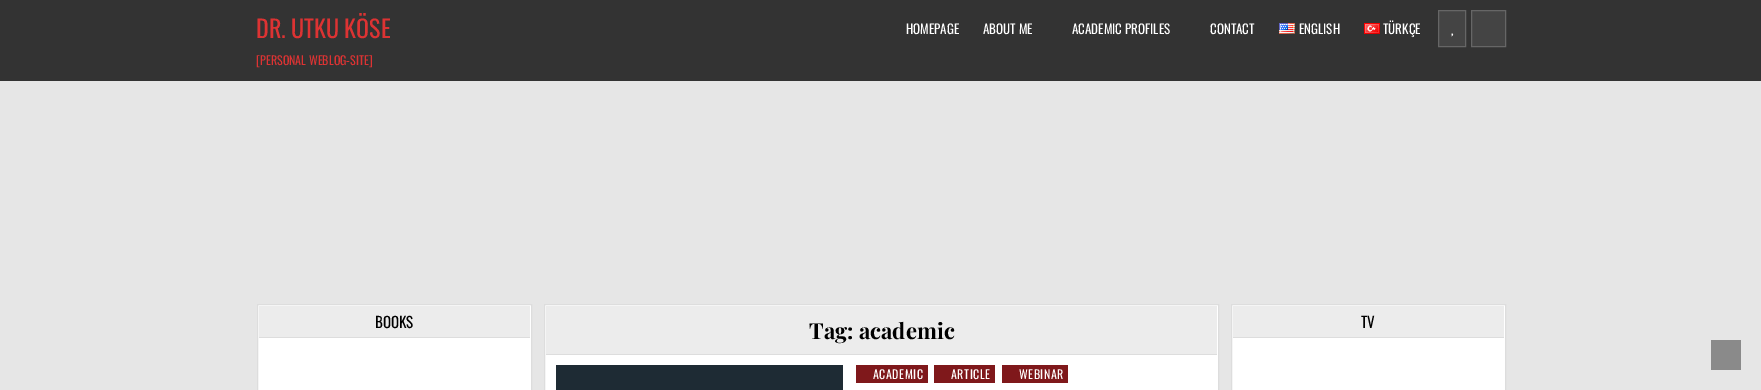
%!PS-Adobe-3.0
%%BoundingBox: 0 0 1761 390
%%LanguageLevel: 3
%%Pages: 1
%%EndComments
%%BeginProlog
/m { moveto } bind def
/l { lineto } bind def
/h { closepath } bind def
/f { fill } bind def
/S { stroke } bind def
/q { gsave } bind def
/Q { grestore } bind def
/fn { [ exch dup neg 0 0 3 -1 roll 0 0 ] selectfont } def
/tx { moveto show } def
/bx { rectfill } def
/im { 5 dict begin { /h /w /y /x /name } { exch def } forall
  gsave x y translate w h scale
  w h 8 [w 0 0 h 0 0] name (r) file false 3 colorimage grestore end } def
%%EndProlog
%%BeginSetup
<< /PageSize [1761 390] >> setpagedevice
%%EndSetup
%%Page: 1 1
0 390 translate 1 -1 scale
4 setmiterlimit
0.902 setgray
0 0 1761 390 bx
0.2 setgray
0 0 1761 81 bx
/Oswald-Regular 24 fn
0.867 0.2 0.2 setrgbcolor
(DR. UTKU KÖSE) 256 38 tx
/Oswald-Regular 12 fn
([PERSONAL WEBLOG-SITE]) 256 65 tx
/Oswald-Regular 13 fn
1 setgray
(HOMEPAGE) 906 34 tx
(ABOUT ME) 983 34 tx
(ACADEMIC PROFILES) 1072 34 tx
(CONTACT) 1210 34 tx
(image0.raw) 1279 23 16 11 im
(ENGLISH) 1299 34 tx
(image1.raw) 1364 23 16 11 im
(TÜRKÇE) 1383 34 tx
0.267 setgray
1438.5 10.5 m 1465.5 10.5 l 1465.5 46.5 l 1438.5 46.5 l h q f Q
0.4 setgray
S
(image2.raw) 1451 33 3 4 im
0.267 setgray
1471.5 10.5 m 1505.5 10.5 l 1505.5 46.5 l 1471.5 46.5 l h q f Q
0.4 setgray
S
1 setgray
257.5 304.5 m 531.5 304.5 l 531.5 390.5 l 257.5 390.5 l h q f Q
0.867 setgray
S
0.925 setgray
259 306 271 31 bx
0.867 setgray
259 337 271 1 bx
/Oswald-Regular 15 fn
0 setgray
(BOOKS) 375 328 tx
1 setgray
544.5 304.5 m 1218.5 304.5 l 1218.5 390.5 l 544.5 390.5 l h q f Q
0.867 setgray
S
0.925 setgray
546 306 671 48 bx
0.867 setgray
546 354 671 1 bx
/PlayfairDisplay-Bold 22 fn
0 setgray
(Tag: academic) 809 339 tx
0.118 0.169 0.204 setrgbcolor
556 365 287 25 bx
0.498 0.094 0.106 setrgbcolor
856 365 72 18 bx
/Oswald-Regular 12 fn
1 setgray
873 379 m 0.5 0 (ACADEMIC) ashow
0.498 0.094 0.106 setrgbcolor
934 365 61 18 bx
1 setgray
951 379 m 0.5 0 (ARTICLE) ashow
0.498 0.094 0.106 setrgbcolor
1002 365 66 18 bx
1 setgray
1019 379 m 0.5 0 (WEBINAR) ashow
1231.5 304.5 m 1505.5 304.5 l 1505.5 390.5 l 1231.5 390.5 l h q f Q
0.867 setgray
S
0.925 setgray
1233 306 271 31 bx
0.867 setgray
1233 337 271 1 bx
/Oswald-Regular 15 fn
0 setgray
(TV) 1361 328 tx
0.541 setgray
1711 340 30 30 bx
showpage
%%EOF
